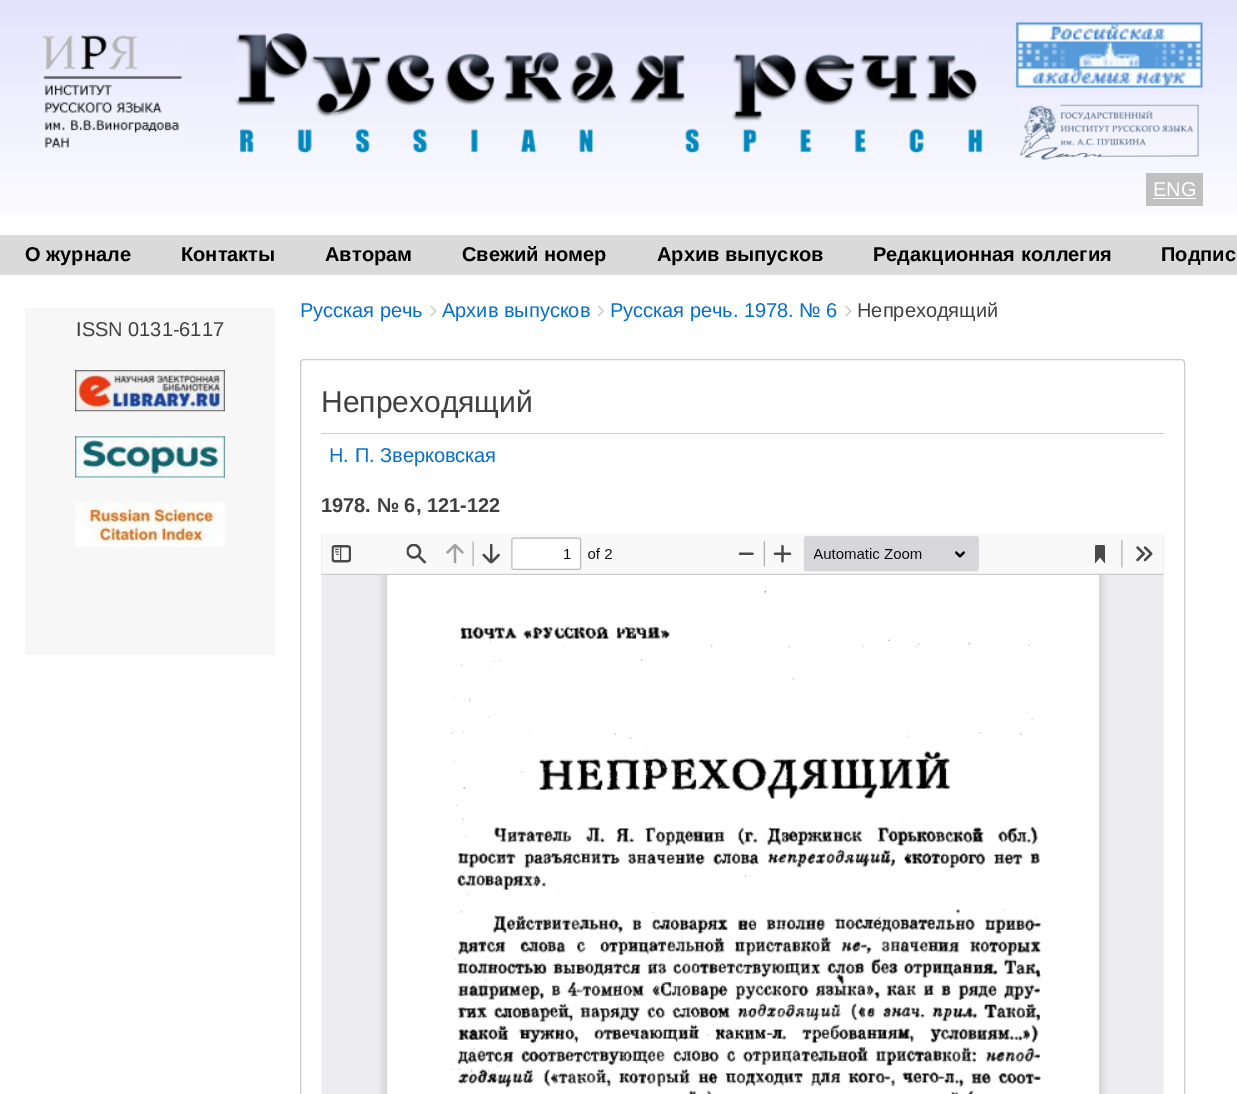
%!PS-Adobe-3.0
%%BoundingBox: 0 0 1237 1094
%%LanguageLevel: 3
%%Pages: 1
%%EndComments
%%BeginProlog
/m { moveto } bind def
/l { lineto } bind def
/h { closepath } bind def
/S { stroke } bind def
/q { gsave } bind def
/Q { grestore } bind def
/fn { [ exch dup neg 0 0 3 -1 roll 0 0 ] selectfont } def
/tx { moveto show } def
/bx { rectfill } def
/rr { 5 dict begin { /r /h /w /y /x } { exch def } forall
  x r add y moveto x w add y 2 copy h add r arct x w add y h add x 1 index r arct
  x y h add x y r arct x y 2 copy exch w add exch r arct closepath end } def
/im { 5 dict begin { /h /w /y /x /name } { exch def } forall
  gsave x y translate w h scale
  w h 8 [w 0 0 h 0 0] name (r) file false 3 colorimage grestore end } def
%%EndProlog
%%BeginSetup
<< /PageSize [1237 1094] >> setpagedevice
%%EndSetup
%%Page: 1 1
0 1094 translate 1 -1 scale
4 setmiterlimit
1 setgray
0 0 1237 1094 bx
q 0 0 m 1237 0 l 1237 214 l 0 214 l h clip newpath
<< /ShadingType 2 /ColorSpace /DeviceRGB /Coords [619 0 619 235] /Extend [true true] /Function << /FunctionType 2 /Domain [0 1] /C0 [0.89 0.89 0.992] /C1 [1 1 1] /N 1 >> >> shfill Q
(image0.raw) 42 35 141 113 im
(image1.raw) 235 33 748 121 im
(image2.raw) 1016 22 187 66 im
(image3.raw) 1020 104 179 56 im
0.753 setgray
1146 173 57 33 bx
/LiberationSans-Regular 20 fn
1 setgray
(ENG) 1153 196 tx
1153 198 43 1 bx
0.855 setgray
0 235 1237 40 bx
/LiberationSans-Bold 20 fn
0 setgray
(О журнале) 25 261 tx
(Контакты) 181 261 tx
(Авторам) 325 261 tx
(Свежий номер) 462 261 tx
(Архив выпусков) 657 261 tx
(Редакционная коллегия) 873 261 tx
(Подпис) 1161 261 tx
0.969 setgray
25 308 250 347 bx
/LiberationSans-Regular 20 fn
0.251 setgray
(ISSN 0131-6117) 76 336 tx
(image4.raw) 75 370 150 42 im
(image5.raw) 75 436 150 42 im
(image6.raw) 75 502 150 46 im
0.02 0.435 0.796 setrgbcolor
(Русская речь) 300 317 tx
(image7.raw) 430 305 7 12 im
(Архив выпусков) 442 317 tx
(image8.raw) 597 305 7 12 im
(Русская речь. 1978. № 6) 610 317 tx
(image7.raw) 845 305 7 12 im
0.251 setgray
(Непреходящий) 857 317 tx
0.8 setgray
300.5 359.5 884 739 3.5 rr S
321 433 843 1 bx
/LiberationSans-Regular 30 fn
0.251 setgray
(Непреходящий) 321 412 tx
/LiberationSans-Regular 20 fn
0.02 0.435 0.796 setrgbcolor
(Н. П. Зверковская) 329 462 tx
/LiberationSans-Bold 20 fn
0.251 setgray
(1978. № 6, 121-122) 321 512 tx
(image9.raw) 321 534 843 560 im
showpage
%%EOF
